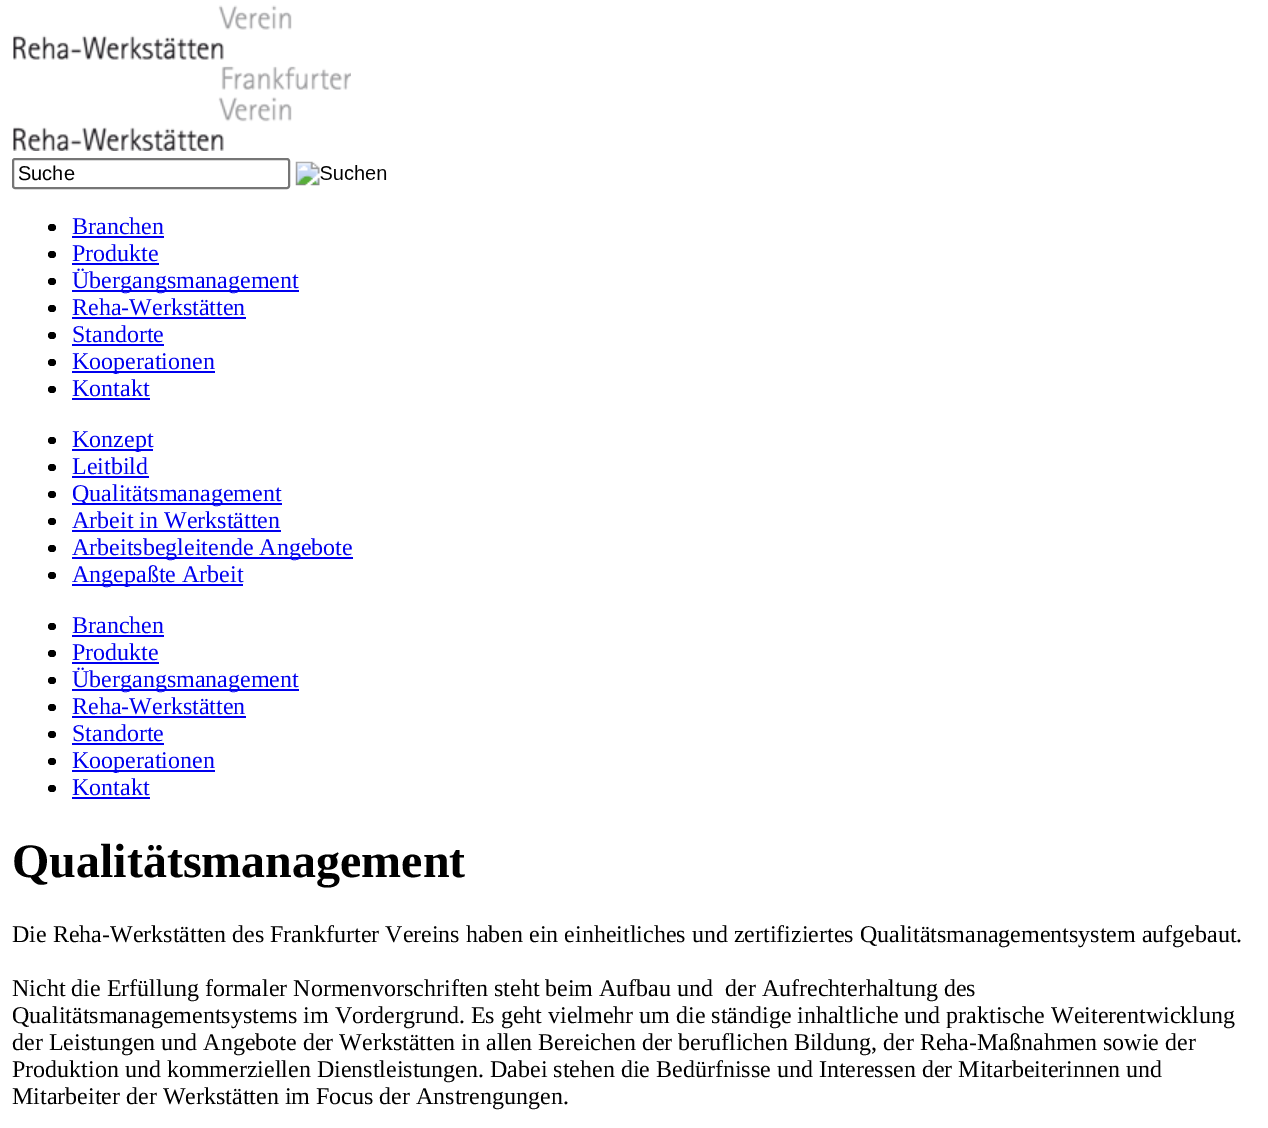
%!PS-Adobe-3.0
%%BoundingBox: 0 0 1268 1128
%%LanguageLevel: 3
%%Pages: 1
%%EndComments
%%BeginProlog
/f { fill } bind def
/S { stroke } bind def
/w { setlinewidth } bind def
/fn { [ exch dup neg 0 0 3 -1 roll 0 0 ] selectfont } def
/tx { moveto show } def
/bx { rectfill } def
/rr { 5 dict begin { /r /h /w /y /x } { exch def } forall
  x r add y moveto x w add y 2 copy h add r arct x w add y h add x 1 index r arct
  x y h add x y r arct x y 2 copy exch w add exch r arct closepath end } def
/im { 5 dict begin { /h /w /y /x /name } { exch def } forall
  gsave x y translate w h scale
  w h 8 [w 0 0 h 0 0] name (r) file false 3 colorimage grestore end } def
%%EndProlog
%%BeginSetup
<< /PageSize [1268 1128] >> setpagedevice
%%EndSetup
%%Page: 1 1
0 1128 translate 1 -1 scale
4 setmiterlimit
1 setgray
0 0 1268 1128 bx
(image0.raw) 13 5 279 55 im
(image1.raw) 13 66 338 85 im
0.463 setgray
2 w
13 159 276 29 2 rr S
/LiberationSans-Regular 20 fn
0 setgray
(Suche) 18 180 tx
(image2.raw) 295 161 92 25 im
48 224 8 7 3.5 rr f
/LiberationSerif-Regular 24 fn
0 0 0.933 setrgbcolor
(Branchen) 72 234 tx
72 236 92 2 bx
0 setgray
48 251 8 7 3.5 rr f
0 0 0.933 setrgbcolor
(Produkte) 72 261 tx
72 263 87 2 bx
0 setgray
48 278 8 7 3.5 rr f
0 0 0.933 setrgbcolor
72 290 227 2 bx
(Übergangsmanagement) 72 288 tx
0 setgray
48 305 8 7 3.5 rr f
0 0 0.933 setrgbcolor
(Reha-Werkstätten) 72 315 tx
72 317 174 2 bx
0 setgray
48 332 8 7 3.5 rr f
0 0 0.933 setrgbcolor
(Standorte) 72 342 tx
72 344 92 2 bx
0 setgray
48 359 8 7 3.5 rr f
0 0 0.933 setrgbcolor
72 371 143 2 bx
(Kooperationen) 72 369 tx
0 setgray
48 386 8 7 3.5 rr f
0 0 0.933 setrgbcolor
(Kontakt) 72 396 tx
72 398 78 2 bx
0 setgray
48 437 8 7 3.5 rr f
0 0 0.933 setrgbcolor
72 449 81 2 bx
(Konzept) 72 447 tx
0 setgray
48 464 8 7 3.5 rr f
0 0 0.933 setrgbcolor
(Leitbild) 72 474 tx
72 476 77 2 bx
0 setgray
48 491 8 7 3.5 rr f
0 0 0.933 setrgbcolor
72 503 210 2 bx
(Qualitätsmanagement) 72 501 tx
0 setgray
48 518 8 7 3.5 rr f
0 0 0.933 setrgbcolor
(Arbeit in Werkstätten) 72 528 tx
72 530 209 2 bx
0 setgray
48 545 8 7 3.5 rr f
0 0 0.933 setrgbcolor
72 557 281 2 bx
(Arbeitsbegleitende Angebote) 72 555 tx
0 setgray
48 572 8 7 3.5 rr f
0 0 0.933 setrgbcolor
72 584 171 2 bx
(Angepaßte Arbeit) 72 582 tx
0 setgray
48 623 8 7 3.5 rr f
0 0 0.933 setrgbcolor
(Branchen) 72 633 tx
72 635 92 2 bx
0 setgray
48 650 8 7 3.5 rr f
0 0 0.933 setrgbcolor
(Produkte) 72 660 tx
72 662 87 2 bx
0 setgray
48 677 8 7 3.5 rr f
0 0 0.933 setrgbcolor
72 689 227 2 bx
(Übergangsmanagement) 72 687 tx
0 setgray
48 704 8 7 3.5 rr f
0 0 0.933 setrgbcolor
(Reha-Werkstätten) 72 714 tx
72 716 174 2 bx
0 setgray
48 731 8 7 3.5 rr f
0 0 0.933 setrgbcolor
(Standorte) 72 741 tx
72 743 92 2 bx
0 setgray
48 758 8 7 3.5 rr f
0 0 0.933 setrgbcolor
72 770 143 2 bx
(Kooperationen) 72 768 tx
0 setgray
48 785 8 7 3.5 rr f
0 0 0.933 setrgbcolor
(Kontakt) 72 795 tx
72 797 78 2 bx
/LiberationSerif-Bold 48 fn
0 setgray
(Qualitätsmanagement) 12 877 tx
/LiberationSerif-Regular 24 fn
(Die Reha-Werkstätten des Frankfurter Vereins haben ein einheitliches und zertifiziertes Qualitätsmanagementsystem aufgebaut.) 12 942 tx
(Nicht die Erfüllung formaler Normenvorschriften steht beim Aufbau und  der Aufrechterhaltung des) 12 996 tx
(Qualitätsmanagementsystems im Vordergrund. Es geht vielmehr um die ständige inhaltliche und praktische Weiterentwicklung) 12 1023 tx
(der Leistungen und Angebote der Werkstätten in allen Bereichen der beruflichen Bildung, der Reha-Maßnahmen sowie der) 12 1050 tx
(Produktion und kommerziellen Dienstleistungen. Dabei stehen die Bedürfnisse und Interessen der Mitarbeiterinnen und) 12 1077 tx
(Mitarbeiter der Werkstätten im Focus der Anstrengungen.) 12 1104 tx
showpage
%%EOF
